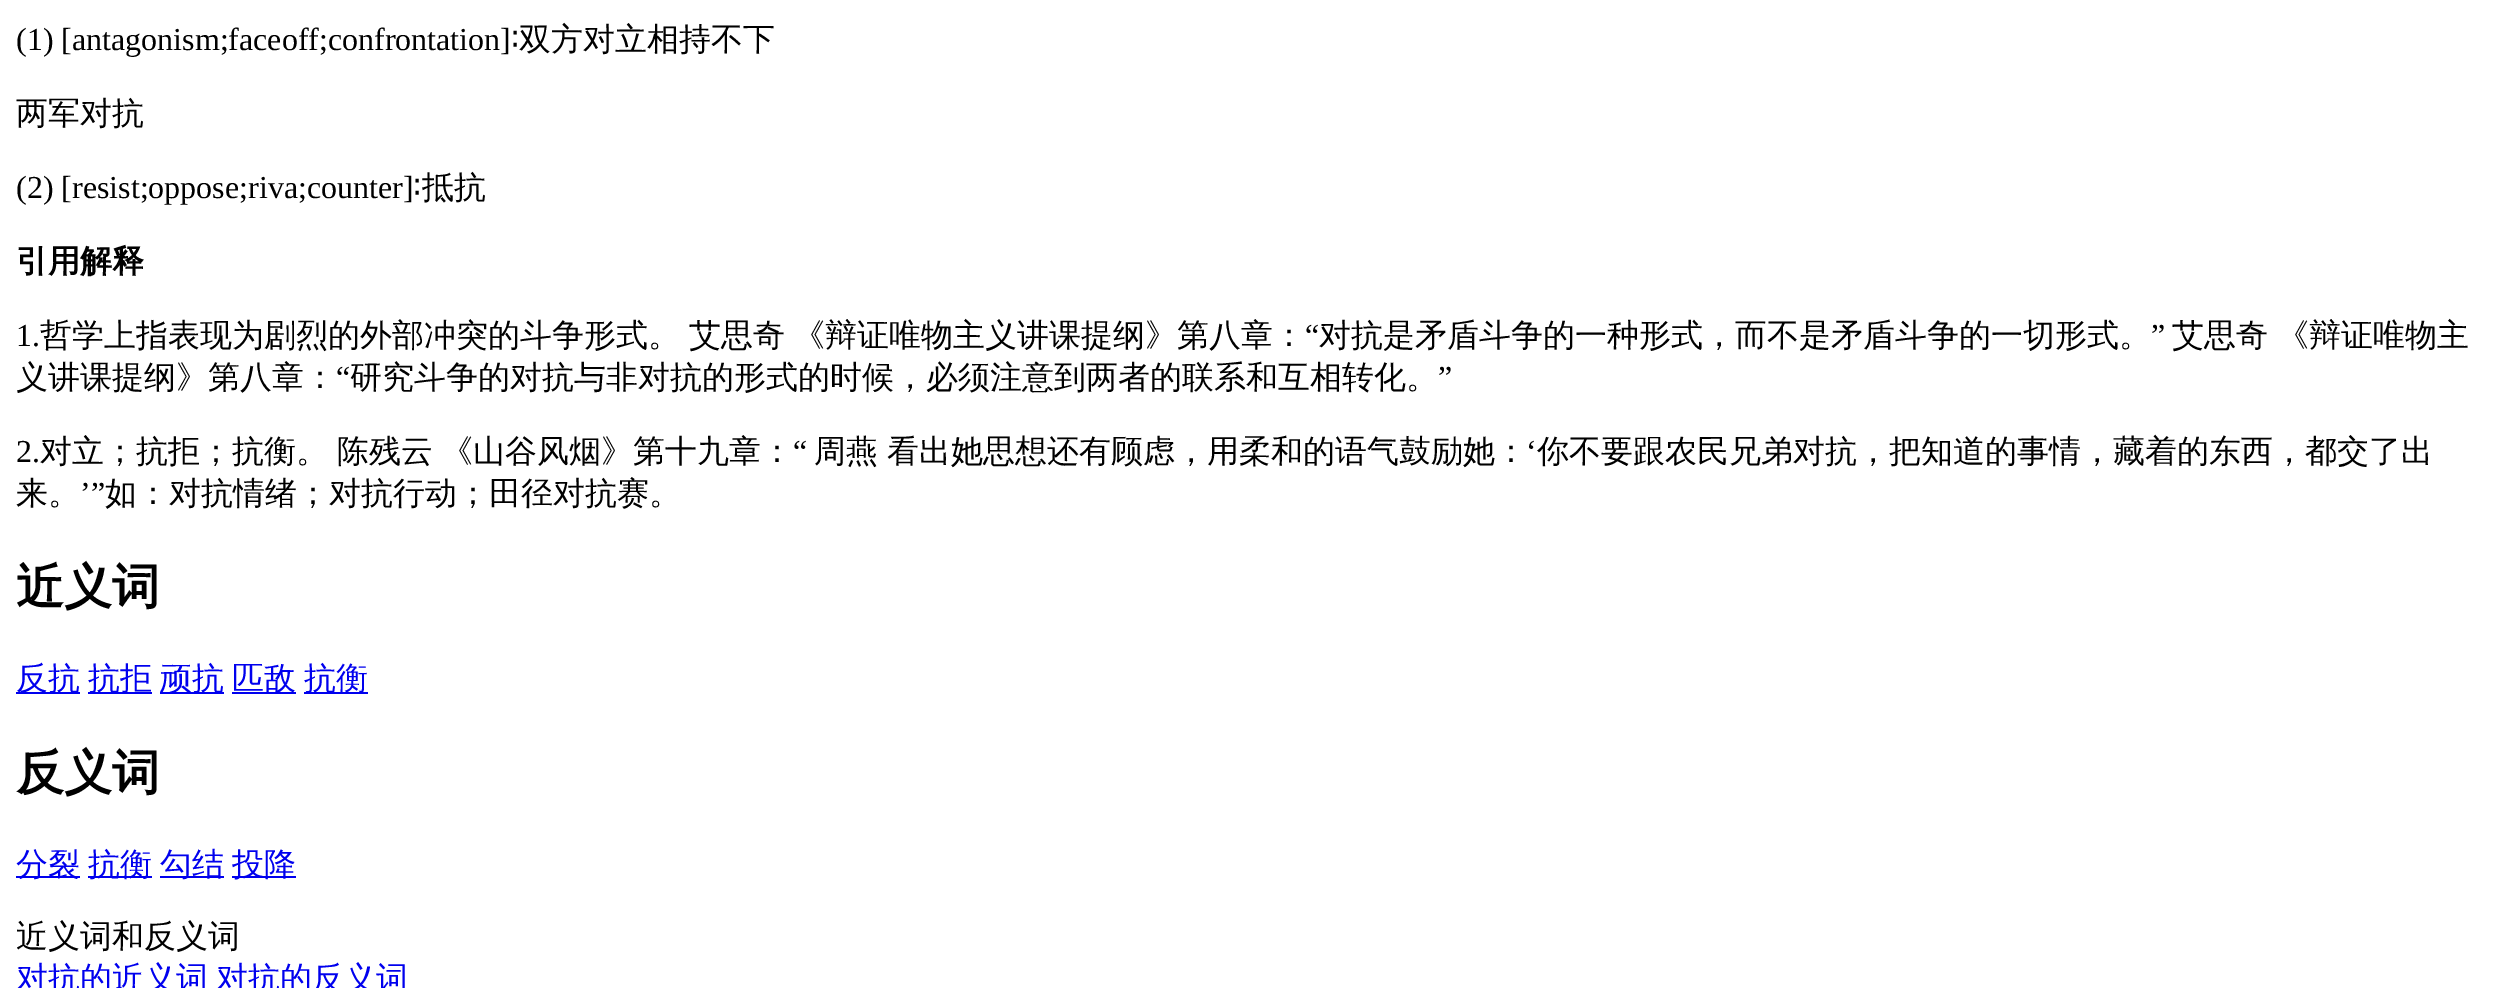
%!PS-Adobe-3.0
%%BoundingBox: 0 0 2509 988
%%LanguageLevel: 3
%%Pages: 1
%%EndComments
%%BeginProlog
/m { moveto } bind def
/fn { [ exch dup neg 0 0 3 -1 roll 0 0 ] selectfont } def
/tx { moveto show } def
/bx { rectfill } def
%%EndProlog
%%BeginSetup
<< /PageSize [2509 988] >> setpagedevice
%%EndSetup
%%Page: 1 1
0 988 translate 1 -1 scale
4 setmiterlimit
1 setgray
0 0 2509 988 bx
/LiberationSerif-Regular 32 fn
0 setgray
(\(1\) [antagonism;faceoff;confrontation]) 16 50 tx
/DejaVuSans-Regular 32 fn
(∶) 511 50 tx
/WenQuanYiZenHei-Medium 32 fn
(双方对立相持不下) 519 50 tx
(两军对抗) 16 124 tx
/LiberationSerif-Regular 32 fn
(\(2\) [resist;oppose;riva;counter]) 16 198 tx
/DejaVuSans-Regular 32 fn
(∶) 413 198 tx
/WenQuanYiZenHei-Medium 32 fn
(抵抗) 422 198 tx
/WenQuanYiZenHei-Bold 32 fn
(引用解释) 16 272 tx
/LiberationSerif-Regular 32 fn
(1.) 16 346 tx
/WenQuanYiZenHei-Medium 32 fn
40 346 m -1 0 32 (哲学上指表现为剧烈的外部冲突的斗争形式。 艾思奇 《辩证唯物主义讲课提纲》第八章：) widthshow
/LiberationSerif-Regular 32 fn
(“) 1305 346 tx
/WenQuanYiZenHei-Medium 32 fn
(对抗是矛盾斗争的一种形式，而不是矛盾斗争的一切形式。) 1319 346 tx
/LiberationSerif-Regular 32 fn
(”) 2151 346 tx
/WenQuanYiZenHei-Medium 32 fn
2172 346 m -1 0 32 (艾思奇 《辩证唯物主) widthshow
(义讲课提纲》第八章：) 16 388 tx
/LiberationSerif-Regular 32 fn
(“) 336 388 tx
/WenQuanYiZenHei-Medium 32 fn
(研究斗争的对抗与非对抗的形式的时候，必须注意到两者的联系和互相转化。) 350 388 tx
/LiberationSerif-Regular 32 fn
(”) 1438 388 tx
(2.) 16 462 tx
/WenQuanYiZenHei-Medium 32 fn
40 462 m -1 0 32 (对立；抗拒；抗衡。 陈残云 《山谷风烟》第十九章：) widthshow
/LiberationSerif-Regular 32 fn
(“) 793 462 tx
/WenQuanYiZenHei-Medium 32 fn
814 462 m -1 0 32 (周燕 看出她思想还有顾虑，用柔和的语气鼓励她：) widthshow
/LiberationSerif-Regular 32 fn
(‘) 1526 462 tx
/WenQuanYiZenHei-Medium 32 fn
(你不要跟农民兄弟对抗，把知道的事情，藏着的东西，都交了出) 1537 462 tx
(来。) 16 504 tx
/LiberationSerif-Regular 32 fn
(’”) 80 504 tx
/WenQuanYiZenHei-Medium 32 fn
(如：对抗情绪；对抗行动；田径对抗赛。) 105 504 tx
/WenQuanYiZenHei-Bold 48 fn
(近义词) 16 603 tx
0 0 0.933 setrgbcolor
16 692 64 2 bx
/WenQuanYiZenHei-Medium 32 fn
(反抗) 16 689 tx
88 692 64 2 bx
(抗拒) 88 689 tx
160 692 64 2 bx
(顽抗) 160 689 tx
232 692 64 2 bx
(匹敌) 232 689 tx
304 692 64 2 bx
(抗衡) 304 689 tx
/WenQuanYiZenHei-Bold 48 fn
0 setgray
(反义词) 16 789 tx
0 0 0.933 setrgbcolor
16 876 64 2 bx
/WenQuanYiZenHei-Medium 32 fn
(分裂) 16 875 tx
88 876 64 2 bx
(抗衡) 88 875 tx
160 876 64 2 bx
(勾结) 160 875 tx
232 876 64 2 bx
(投降) 232 875 tx
0 setgray
(近义词和反义词) 16 947 tx
0 0 0.933 setrgbcolor
(对抗的近义词) 16 989 tx
(对抗的反义词) 216 989 tx
showpage
%%EOF
